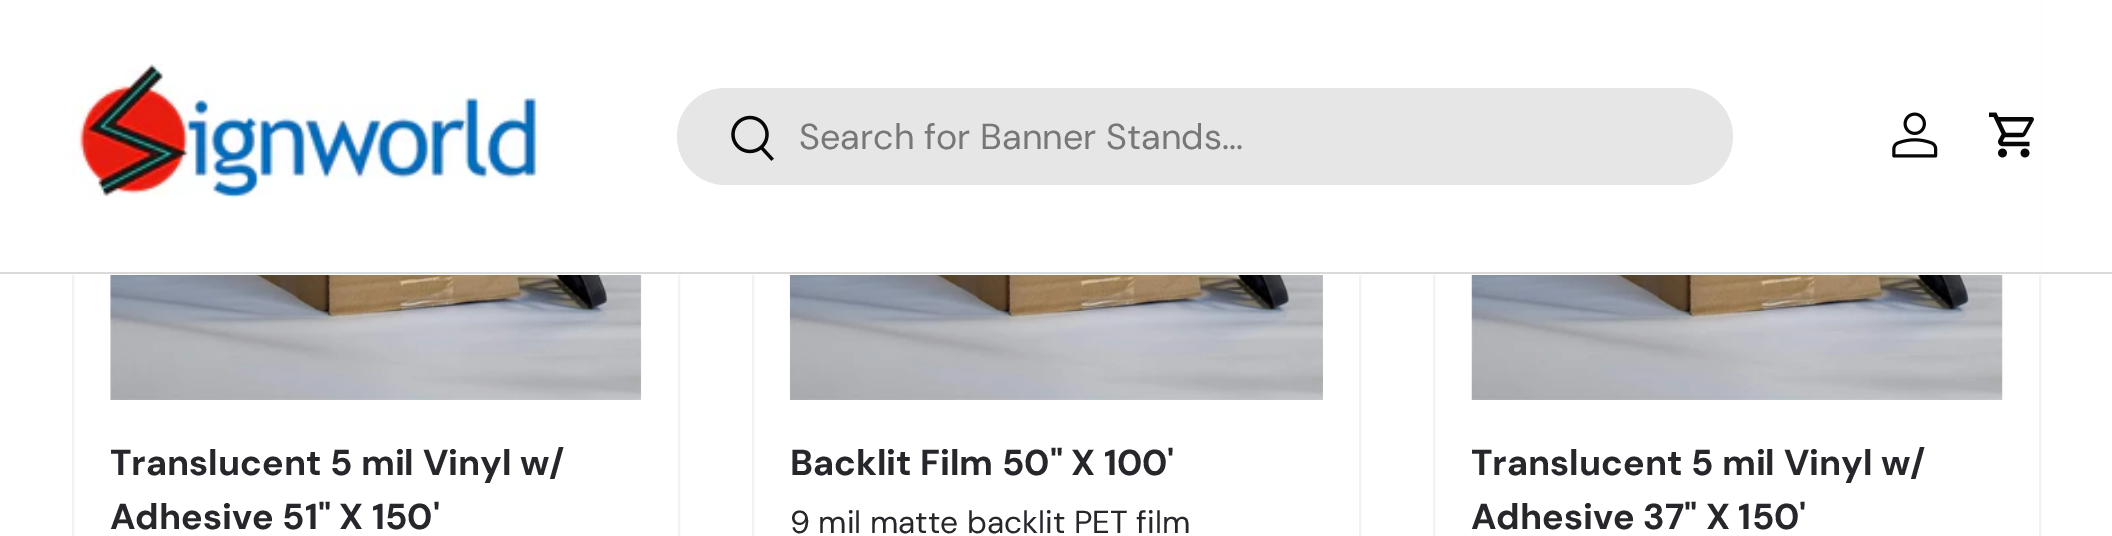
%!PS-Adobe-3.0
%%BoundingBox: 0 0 2112 536
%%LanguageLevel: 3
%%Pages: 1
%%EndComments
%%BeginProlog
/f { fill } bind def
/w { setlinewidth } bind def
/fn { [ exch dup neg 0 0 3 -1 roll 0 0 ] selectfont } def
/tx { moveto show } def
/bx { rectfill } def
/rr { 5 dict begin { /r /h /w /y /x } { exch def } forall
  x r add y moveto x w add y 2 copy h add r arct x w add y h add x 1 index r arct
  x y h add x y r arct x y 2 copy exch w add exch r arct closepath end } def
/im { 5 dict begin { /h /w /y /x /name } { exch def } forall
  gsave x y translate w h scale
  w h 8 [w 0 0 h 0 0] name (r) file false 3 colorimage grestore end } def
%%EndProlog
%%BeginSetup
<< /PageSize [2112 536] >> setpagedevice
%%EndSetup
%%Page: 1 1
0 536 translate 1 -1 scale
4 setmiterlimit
1 setgray
0 0 2112 536 bx
0.949 setgray
2 w
73 -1 606 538 rectstroke
753 -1 607 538 rectstroke
1434 -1 606 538 rectstroke
1 setgray
72 0 1969 275 bx
0.855 setgray
0 272 2112 2 bx
(image0.raw) 72 64 468 134 im
0.902 setgray
677 88 1056 97 48.5 rr f
(image1.raw) 731 115 43 46 im
/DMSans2-Regular 36 fn
0.467 setgray
(Search for Banner Stands...) 799 149 tx
(image2.raw) 1892 112 46 46 im
(image3.raw) 1989 112 45 46 im
(image4.raw) 110 275 532 125 im
/DMSans-Bold 36 fn
0.149 0.149 0.169 setrgbcolor
(Translucent 5 mil Vinyl w/) 110 475 tx
(Adhesive 51" X 150') 110 529 tx
(image5.raw) 789 275 534 125 im
(Backlit Film 50" X 100') 790 475 tx
/DMSans-Regular 31.75 fn
(9 mil matte backlit PET film) 790 533 tx
(image6.raw) 1471 275 532 125 im
/DMSans-Bold 36 fn
(Translucent 5 mil Vinyl w/) 1471 475 tx
(Adhesive 37" X 150') 1471 529 tx
showpage
%%EOF
